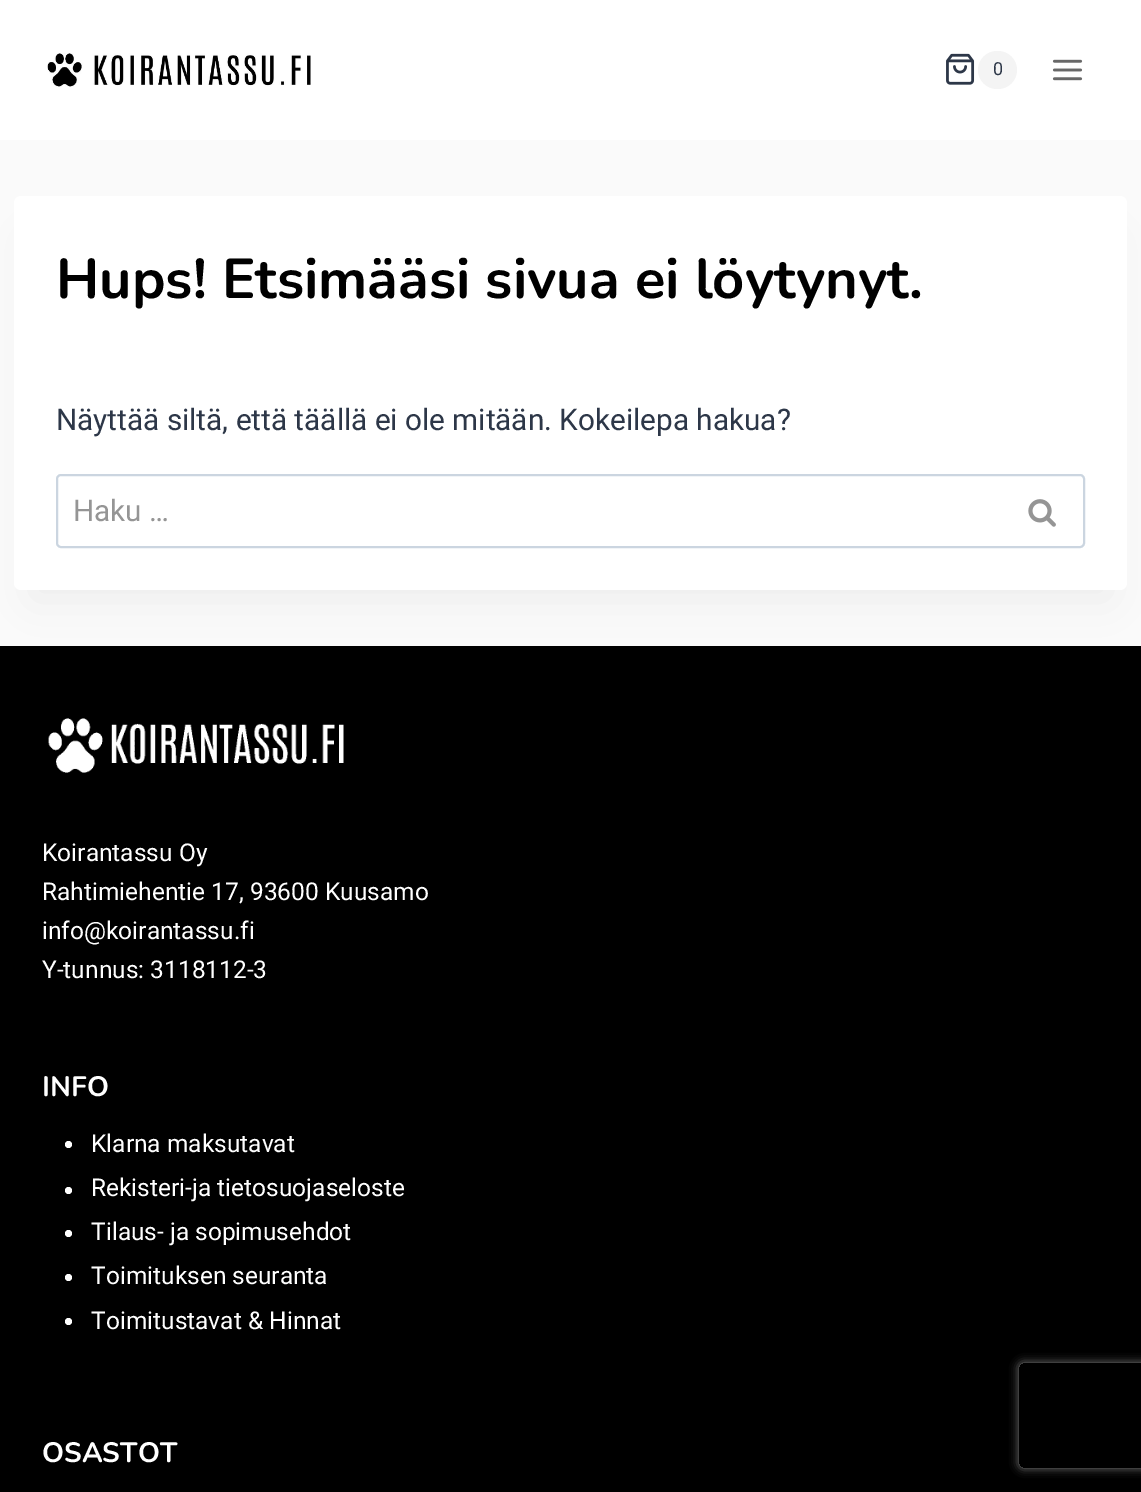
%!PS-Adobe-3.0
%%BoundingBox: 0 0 1141 1492
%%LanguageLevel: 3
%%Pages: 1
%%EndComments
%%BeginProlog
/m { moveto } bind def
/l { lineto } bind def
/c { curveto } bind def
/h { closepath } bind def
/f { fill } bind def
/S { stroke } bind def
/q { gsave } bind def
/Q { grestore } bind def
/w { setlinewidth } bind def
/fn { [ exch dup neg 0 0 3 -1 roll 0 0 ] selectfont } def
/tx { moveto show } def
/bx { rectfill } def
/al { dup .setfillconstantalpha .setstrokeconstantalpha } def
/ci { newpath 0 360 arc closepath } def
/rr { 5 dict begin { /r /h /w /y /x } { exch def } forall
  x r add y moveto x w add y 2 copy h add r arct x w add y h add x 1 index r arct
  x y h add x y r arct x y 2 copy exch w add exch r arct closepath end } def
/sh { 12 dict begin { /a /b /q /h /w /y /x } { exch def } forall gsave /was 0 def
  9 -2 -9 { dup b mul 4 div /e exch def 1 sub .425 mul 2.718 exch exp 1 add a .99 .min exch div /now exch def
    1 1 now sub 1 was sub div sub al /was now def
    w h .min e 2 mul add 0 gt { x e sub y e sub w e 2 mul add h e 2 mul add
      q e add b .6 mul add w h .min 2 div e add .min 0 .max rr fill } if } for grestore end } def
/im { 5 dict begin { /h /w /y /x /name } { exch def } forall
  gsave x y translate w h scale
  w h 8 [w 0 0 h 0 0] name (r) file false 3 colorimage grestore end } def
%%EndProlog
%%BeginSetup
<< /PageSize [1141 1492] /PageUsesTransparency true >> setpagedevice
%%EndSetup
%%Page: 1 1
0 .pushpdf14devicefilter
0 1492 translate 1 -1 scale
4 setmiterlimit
0.98 setgray
0 0 1141 1492 bx
1 setgray
0 0 1141 140 bx
(image0.raw) 47 53 264 34 im
(image1.raw) 946 53 29 32 im
0.957 setgray
978 51 39 38 19 rr f
/Roboto-Regular 18 fn
0.176 0.216 0.282 setrgbcolor
(0) 993 75 tx
(image2.raw) 1052 59 31 22 im
0 setgray
0 646 1141 846 bx
32 240 1078 359 0 22 0.05 sh
1 setgray
14 196 1113 394 7 rr f
/Nunito-ExtraLight 56 fn
0 setgray
(Hups! Etsimääsi sivua ei löytynyt.) 56 298 tx
/Roboto-Regular 29.75 fn
0.176 0.216 0.282 setrgbcolor
(Näyttää siltä, että täällä ei ole mitään. Kokeilepa hakua?) 56 430 tx
0.796 0.835 0.878 setrgbcolor
2 w
57 475 1027 72 4 rr S
0.584 setgray
(Haku …) 73 521 tx
(image3.raw) 1028 499 28 28 im
(image4.raw) 48 718 296 55 im
/Roboto-Regular 24.5 fn
1 setgray
(Koirantassu Oy) 42 861 tx
(Rahtimiehentie 17, 93600 Kuusamo) 42 900 tx
(info@koirantassu.fi) 42 939 tx
(Y-tunnus: 3118112-3) 42 978 tx
/Nunito-ExtraLight 28 fn
(INFO) 42 1096 tx
68.5 1144.5 3.5 ci f
/Roboto-Regular 24.5 fn
(Klarna maksutavat) 91 1152 tx
68.5 1190.5 3.5 ci f
(Rekisteri-ja tietosuojaseloste) 91 1196 tx
68.5 1233.5 3.5 ci f
(Tilaus- ja sopimusehdot) 91 1240 tx
68.5 1277.5 3.5 ci f
(Toimituksen seuranta) 91 1284 tx
68.5 1321.5 3.5 ci f
(Toimitustavat & Hinnat) 91 1329 tx
/Nunito-ExtraLight 28 fn
(OSASTOT) 42 1462 tx
q
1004 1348 m 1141 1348 l 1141 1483 l 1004 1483 l h 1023 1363 m 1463 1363 l 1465 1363 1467 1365 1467 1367 c 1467 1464 l 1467 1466 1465 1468 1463 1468 c 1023 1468 l 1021 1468 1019 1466 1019 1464 c 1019 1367 l 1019 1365 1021 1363 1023 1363 c h eoclip newpath
0.502 setgray
1019 1363 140 105 4 4.5 1 sh
Q
.poppdf14devicefilter showpage
%%EOF
